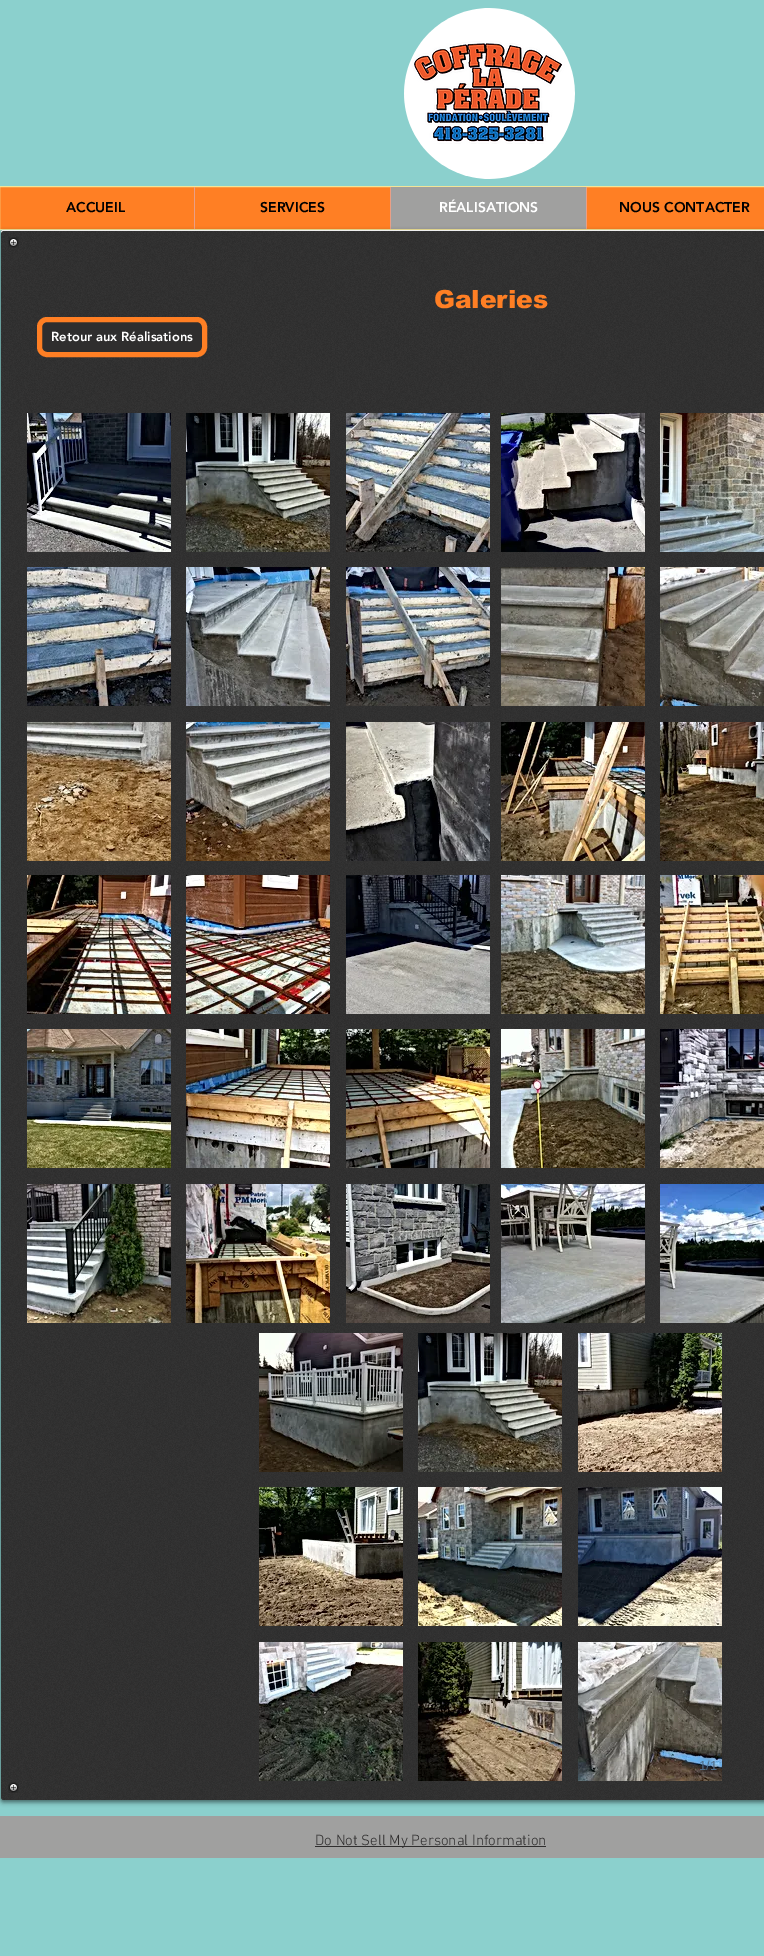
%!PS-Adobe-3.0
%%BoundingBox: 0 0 764 1956
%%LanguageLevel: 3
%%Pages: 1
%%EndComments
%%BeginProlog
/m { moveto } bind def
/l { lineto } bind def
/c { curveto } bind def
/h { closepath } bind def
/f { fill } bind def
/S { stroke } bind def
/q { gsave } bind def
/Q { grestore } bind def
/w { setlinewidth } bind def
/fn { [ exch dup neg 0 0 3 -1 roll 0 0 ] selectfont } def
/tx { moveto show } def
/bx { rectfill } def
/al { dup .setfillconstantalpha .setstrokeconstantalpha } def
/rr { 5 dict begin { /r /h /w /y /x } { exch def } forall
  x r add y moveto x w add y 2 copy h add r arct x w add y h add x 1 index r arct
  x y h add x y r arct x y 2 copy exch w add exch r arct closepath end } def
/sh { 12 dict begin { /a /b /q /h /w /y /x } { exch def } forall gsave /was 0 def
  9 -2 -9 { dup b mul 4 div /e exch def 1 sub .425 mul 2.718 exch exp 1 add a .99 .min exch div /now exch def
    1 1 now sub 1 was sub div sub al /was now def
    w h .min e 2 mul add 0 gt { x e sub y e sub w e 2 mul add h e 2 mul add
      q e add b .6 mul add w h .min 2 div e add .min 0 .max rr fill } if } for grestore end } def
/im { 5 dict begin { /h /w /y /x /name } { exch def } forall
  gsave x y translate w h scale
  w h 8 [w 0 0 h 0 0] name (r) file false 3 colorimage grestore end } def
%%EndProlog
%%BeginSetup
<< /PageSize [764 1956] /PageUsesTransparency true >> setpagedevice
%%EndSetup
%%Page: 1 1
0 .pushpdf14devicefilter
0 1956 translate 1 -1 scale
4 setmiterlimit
0.545 0.816 0.804 setrgbcolor
0 0 764 1956 bx
(image0.raw) 404 8 171 171 im
1 0.498 0.141 setrgbcolor
-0.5 186.5 m 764.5 186.5 l 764.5 229.5 l -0.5 229.5 l h q f Q
0.953 0.898 0.596 setrgbcolor
S
/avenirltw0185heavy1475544-Black 14 fn
0 setgray
(ACCUEIL) 66 212 tx
0.914 0.624 0.525 setrgbcolor
194 187 1 42 bx
0 setgray
(SERVICES) 260 212 tx
0.627 0.627 0.624 setrgbcolor
391 187 195 42 bx
0.914 0.624 0.525 setrgbcolor
390 187 1 42 bx
1 setgray
(RÉALISATIONS) 439 212 tx
0.914 0.624 0.525 setrgbcolor
586 187 1 42 bx
0 setgray
(NOUS CONTACTER) 619 212 tx
q
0 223 m 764 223 l 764 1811 l 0 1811 l h 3 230 m 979 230 l 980 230 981 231 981 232 c 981 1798 l 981 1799 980 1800 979 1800 c 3 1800 l 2 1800 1 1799 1 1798 c 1 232 l 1 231 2 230 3 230 c h eoclip newpath
1 232 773 1570 2 2.5 0.53 sh
Q
0.99 al
0.184 0.18 0.18 setrgbcolor
1 230 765 1570 2 rr f
1 al
(image1.raw) 1 230 763 1570 im
0.92 al
1 setgray
3 231 m 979 231 l 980 231 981 232 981 233 c 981 232 l 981 231 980 230 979 230 c 3 230 l 2 230 1 231 1 232 c 1 233 l 1 232 2 231 3 231 c h f
1 al
(image2.raw) 8 237 11 11 im
/arial-Black 25 fn
1 0.498 0.141 setrgbcolor
(Galeries) 434 308 tx
0.184 0.18 0.18 setrgbcolor
39.5 319.5 165 35 7.5 rr q f Q
1 0.498 0.141 setrgbcolor
5 w
S
/avenirltw0185heavy1475544-Black 13 fn
1 setgray
(Retour aux Réalisations) 51 341 tx
(image3.raw) 27 413 144 139 im
(image4.raw) 186 413 144 139 im
(image5.raw) 346 413 144 139 im
(image6.raw) 27 567 144 139 im
(image7.raw) 186 567 144 139 im
(image8.raw) 346 567 144 139 im
(image9.raw) 27 722 144 139 im
(image10.raw) 186 722 144 139 im
(image11.raw) 346 722 144 139 im
(image12.raw) 501 413 144 139 im
(image13.raw) 660 413 104 139 im
(image14.raw) 501 567 144 139 im
(image15.raw) 660 567 104 139 im
(image16.raw) 501 722 144 139 im
(image17.raw) 660 722 104 139 im
(image18.raw) 27 875 144 139 im
(image19.raw) 186 875 144 139 im
(image20.raw) 346 875 144 139 im
(image21.raw) 27 1029 144 139 im
(image22.raw) 186 1029 144 139 im
(image23.raw) 346 1029 144 139 im
(image24.raw) 27 1184 144 139 im
(image25.raw) 186 1184 144 139 im
(image26.raw) 346 1184 144 139 im
(image27.raw) 501 875 144 139 im
(image28.raw) 660 875 104 139 im
(image29.raw) 501 1029 144 139 im
(image30.raw) 660 1029 104 139 im
(image31.raw) 501 1184 144 139 im
(image32.raw) 660 1184 104 139 im
(image33.raw) 259 1333 144 139 im
(image34.raw) 418 1333 144 139 im
(image35.raw) 578 1333 144 139 im
(image36.raw) 259 1487 144 139 im
(image37.raw) 418 1487 144 139 im
(image38.raw) 578 1487 144 139 im
(image39.raw) 259 1642 144 139 im
(image40.raw) 418 1642 144 139 im
(image41.raw) 578 1642 144 139 im
/LiberationSans-Regular 13 fn
0.31 0.42 0.525 setrgbcolor
(1/1) 699 1770 tx
(image42.raw) 8 1782 11 11 im
0.627 0.627 0.624 setrgbcolor
0 1816 764 42 bx
0.184 0.18 0.18 setrgbcolor
315 1846 231 1 bx
/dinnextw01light-Light 15 fn
(Do Not Sell My Personal Information) 315 1845 tx
.poppdf14devicefilter showpage
%%EOF
